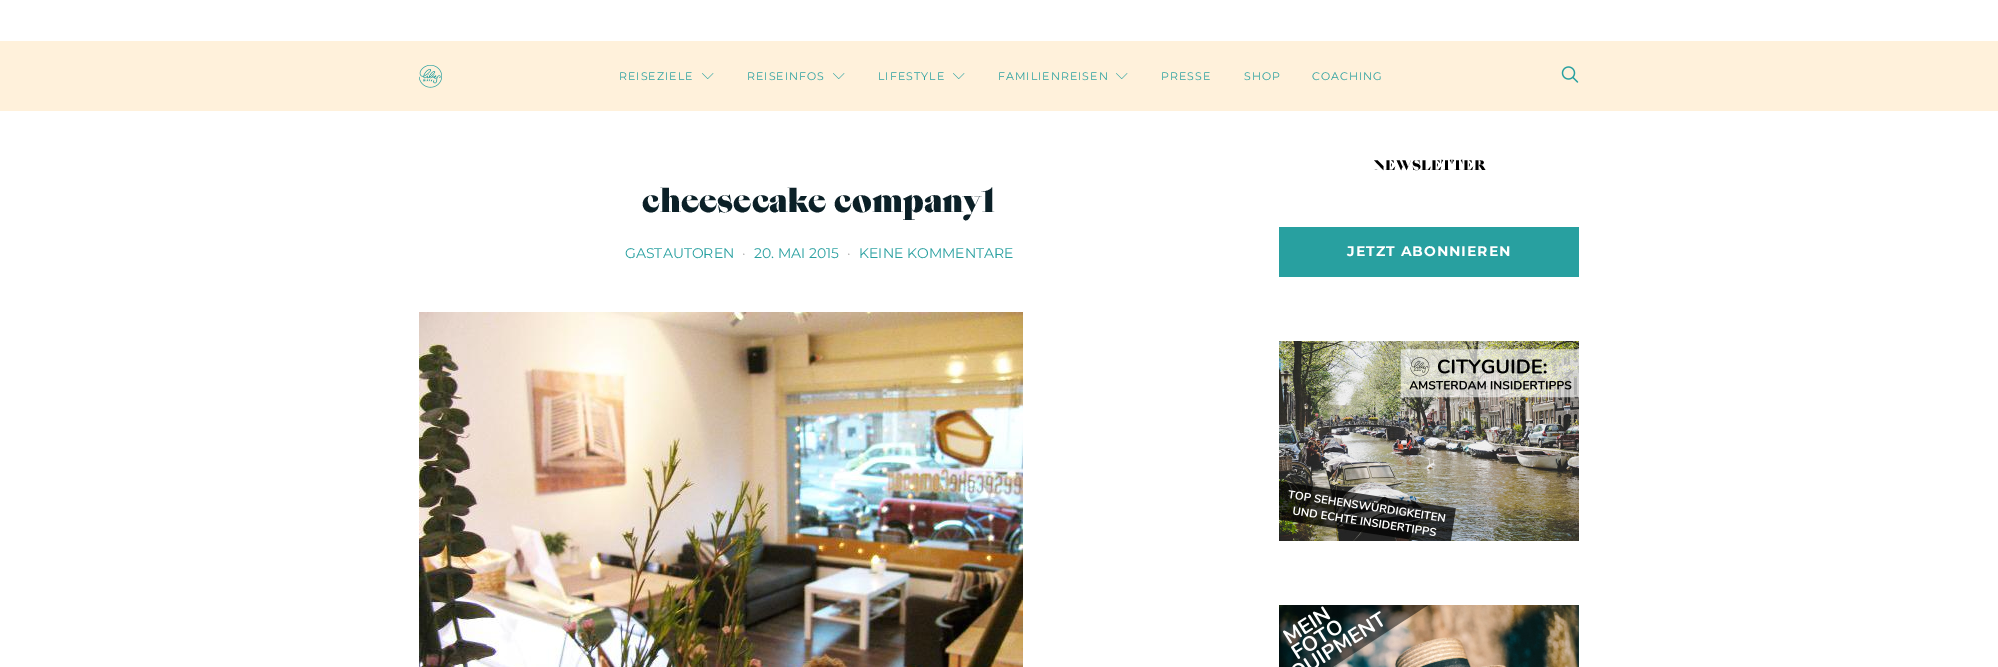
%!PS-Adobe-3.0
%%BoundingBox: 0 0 1998 667
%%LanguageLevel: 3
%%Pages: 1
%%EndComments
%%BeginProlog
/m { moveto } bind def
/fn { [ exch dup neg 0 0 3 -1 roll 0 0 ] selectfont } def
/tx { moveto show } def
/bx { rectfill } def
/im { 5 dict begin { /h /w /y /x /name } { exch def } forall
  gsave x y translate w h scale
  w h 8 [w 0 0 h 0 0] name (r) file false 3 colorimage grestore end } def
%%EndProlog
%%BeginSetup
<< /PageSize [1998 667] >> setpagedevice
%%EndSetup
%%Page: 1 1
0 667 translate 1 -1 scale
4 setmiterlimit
1 setgray
0 0 1998 667 bx
1 0.945 0.859 setrgbcolor
0 41 1998 70 bx
(image0.raw) 419 65 23 23 im
/Montserrat-Regular 11 fn
0.157 0.627 0.627 setrgbcolor
619 80 m 1 0 (REISEZIELE) ashow
(image1.raw) 702 73 12 6 im
747 80 m 1 0 (REISEINFOS) ashow
(image1.raw) 833 73 12 6 im
878 80 m 1 0 (LIFESTYLE) ashow
(image1.raw) 953 73 12 6 im
998 80 m 1 0 (FAMILIENREISEN) ashow
(image1.raw) 1116 73 12 6 im
1161 80 m 1 0 (PRESSE) ashow
1244 80 m 1 0 (SHOP) ashow
1312 80 m 1 0 (COACHING) ashow
(image2.raw) 1561 66 18 17 im
/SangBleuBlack-Black 32 fn
0.043 0.125 0.153 setrgbcolor
(cheesecake company1) 642 212 tx
/Montserrat-Regular 14 fn
0.157 0.627 0.627 setrgbcolor
(GASTAUTOREN) 625 258 tx
0.718 setgray
(·) 742 258 tx
0.157 0.627 0.627 setrgbcolor
(20. MAI 2015) 754 258 tx
0.718 setgray
(·) 847 258 tx
0.157 0.627 0.627 setrgbcolor
(KEINE KOMMENTARE) 859 258 tx
(image3.raw) 419 312 604 355 im
/SangBleuBlack-Black 13 fn
0 setgray
1374 170 m 0.25 0 (NEWSLETTER) ashow
0.157 0.627 0.627 setrgbcolor
1279 227 300 50 bx
/Montserrat-Bold 14 fn
1 setgray
1347 256 m 1 0 (JETZT ABONNIEREN) ashow
(image4.raw) 1279 341 300 200 im
(image5.raw) 1279 605 300 62 im
showpage
%%EOF
